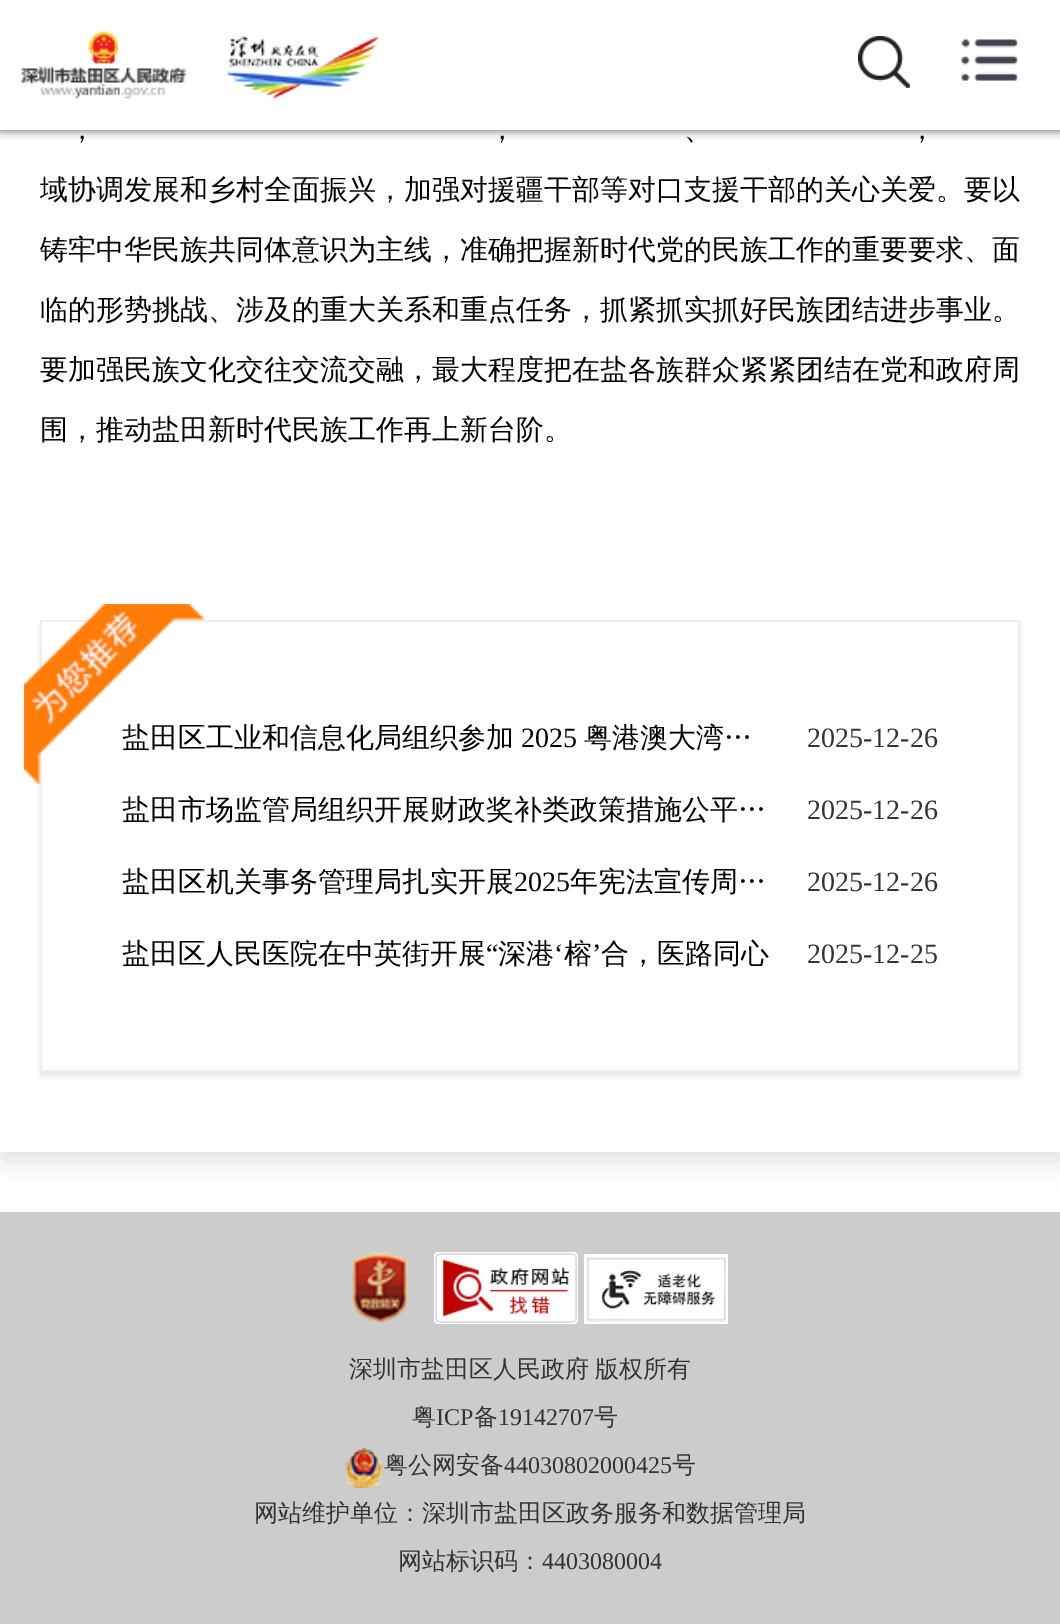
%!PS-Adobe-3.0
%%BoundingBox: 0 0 1060 1624
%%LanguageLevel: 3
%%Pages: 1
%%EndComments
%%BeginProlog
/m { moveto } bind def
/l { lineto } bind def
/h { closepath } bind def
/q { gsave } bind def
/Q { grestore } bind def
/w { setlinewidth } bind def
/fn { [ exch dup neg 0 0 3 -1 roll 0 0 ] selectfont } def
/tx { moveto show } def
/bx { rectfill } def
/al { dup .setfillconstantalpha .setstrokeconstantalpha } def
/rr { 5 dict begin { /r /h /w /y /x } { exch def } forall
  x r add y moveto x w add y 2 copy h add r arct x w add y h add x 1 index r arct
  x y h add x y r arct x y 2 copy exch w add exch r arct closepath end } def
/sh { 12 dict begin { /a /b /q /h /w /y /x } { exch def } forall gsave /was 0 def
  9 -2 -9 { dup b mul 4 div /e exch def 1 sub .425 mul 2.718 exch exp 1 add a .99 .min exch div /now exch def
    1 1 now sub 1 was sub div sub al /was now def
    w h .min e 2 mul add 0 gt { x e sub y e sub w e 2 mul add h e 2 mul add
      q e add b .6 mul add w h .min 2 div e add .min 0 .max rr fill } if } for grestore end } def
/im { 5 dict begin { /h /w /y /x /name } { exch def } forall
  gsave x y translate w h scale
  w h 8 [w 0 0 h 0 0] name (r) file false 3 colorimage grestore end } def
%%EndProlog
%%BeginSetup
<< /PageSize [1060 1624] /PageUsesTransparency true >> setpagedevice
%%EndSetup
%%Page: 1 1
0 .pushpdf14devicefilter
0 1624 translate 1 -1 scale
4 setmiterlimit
1 setgray
0 0 1060 1624 bx
0.533 setgray
0 2 1060 130 0 4 1 sh
q
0 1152 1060 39 rectclip
0.863 setgray
2 -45 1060 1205 0 15 1 sh
Q
1 setgray
0 0 1060 130 bx
(image0.raw) 21 31 165 68 im
(image1.raw) 226 36 153 63 im
(image2.raw) 858 36 52 52 im
(image3.raw) 961 39 57 42 im
/WenQuanYiZenHei-Medium 28 fn
0 setgray
(，) 68 139 tx
(，) 488 139 tx
(、) 684 139 tx
(，) 908 139 tx
(域协调发展和乡村全面振兴，加强对援疆干部等对口支援干部的关心关爱。要以) 40 199 tx
(铸牢中华民族共同体意识为主线，准确把握新时代党的民族工作的重要要求、面) 40 259 tx
(临的形势挑战、涉及的重大关系和重点任务，抓紧抓实抓好民族团结进步事业。) 40 319 tx
(要加强民族文化交往交流交融，最大程度把在盐各族群众紧紧团结在党和政府周) 40 379 tx
(围，推动盐田新时代民族工作再上新台阶。) 40 439 tx
q
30 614 m 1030 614 l 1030 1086 l 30 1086 l h 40 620 m 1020 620 l 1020 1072 l 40 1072 l h eoclip newpath
0.902 setgray
40 624 980 452 0 3 1 sh
Q
0.933 0.937 0.941 setrgbcolor
2 w
41 621 978 450 rectstroke
(image4.raw) 24 604 180 180 im
0 setgray
(盐田区工业和信息化局组织参加) 122 747 tx
/LiberationSerif-Regular 28 fn
(2025) 521 747 tx
/WenQuanYiZenHei-Medium 28 fn
(粤港澳大湾…) 584 747 tx
/LiberationSerif-Regular 28 fn
0.2 setgray
(2025-12-26) 807 747 tx
/WenQuanYiZenHei-Medium 28 fn
0 setgray
(盐田市场监管局组织开展财政奖补类政策措施公平…) 122 819 tx
/LiberationSerif-Regular 28 fn
0.2 setgray
(2025-12-26) 807 819 tx
/WenQuanYiZenHei-Medium 28 fn
0 setgray
(盐田区机关事务管理局扎实开展) 122 891 tx
/LiberationSerif-Regular 28 fn
(2025) 514 891 tx
/WenQuanYiZenHei-Medium 28 fn
(年宪法宣传周…) 570 891 tx
/LiberationSerif-Regular 28 fn
0.2 setgray
(2025-12-26) 807 891 tx
/WenQuanYiZenHei-Medium 28 fn
0 setgray
(盐田区人民医院在中英街开展) 122 963 tx
/LiberationSerif-Regular 28 fn
(“) 486 963 tx
/WenQuanYiZenHei-Medium 28 fn
(深港) 498 963 tx
/LiberationSerif-Regular 28 fn
(‘) 554 963 tx
/WenQuanYiZenHei-Medium 28 fn
(榕) 564 963 tx
/LiberationSerif-Regular 28 fn
(’) 592 963 tx
/WenQuanYiZenHei-Medium 28 fn
(合，医路同心) 601 963 tx
/LiberationSerif-Regular 28 fn
0.2 setgray
(2025-12-25) 807 963 tx
0.8 setgray
0 1212 1060 412 bx
(image5.raw) 352 1252 56 72 im
(image6.raw) 434 1252 144 72 im
(image7.raw) 584 1254 144 70 im
/WenQuanYiZenHei-Medium 24 fn
0.2 setgray
349 1377 m -1 0 32 (深圳市盐田区人民政府 版权所有) widthshow
(粤) 412 1425 tx
/LiberationSerif-Regular 24 fn
(ICP) 436 1425 tx
/WenQuanYiZenHei-Medium 24 fn
(备) 474 1425 tx
/LiberationSerif-Regular 24 fn
(19142707) 498 1425 tx
/WenQuanYiZenHei-Medium 24 fn
(号) 594 1425 tx
(image8.raw) 345 1448 38 40 im
(粤公网安备) 384 1473 tx
/LiberationSerif-Regular 24 fn
(44030802000425) 504 1473 tx
/WenQuanYiZenHei-Medium 24 fn
(号) 672 1473 tx
(网站维护单位：深圳市盐田区政务服务和数据管理局) 254 1521 tx
(网站标识码：) 398 1569 tx
/LiberationSerif-Regular 24 fn
(4403080004) 542 1569 tx
.poppdf14devicefilter showpage
%%EOF
